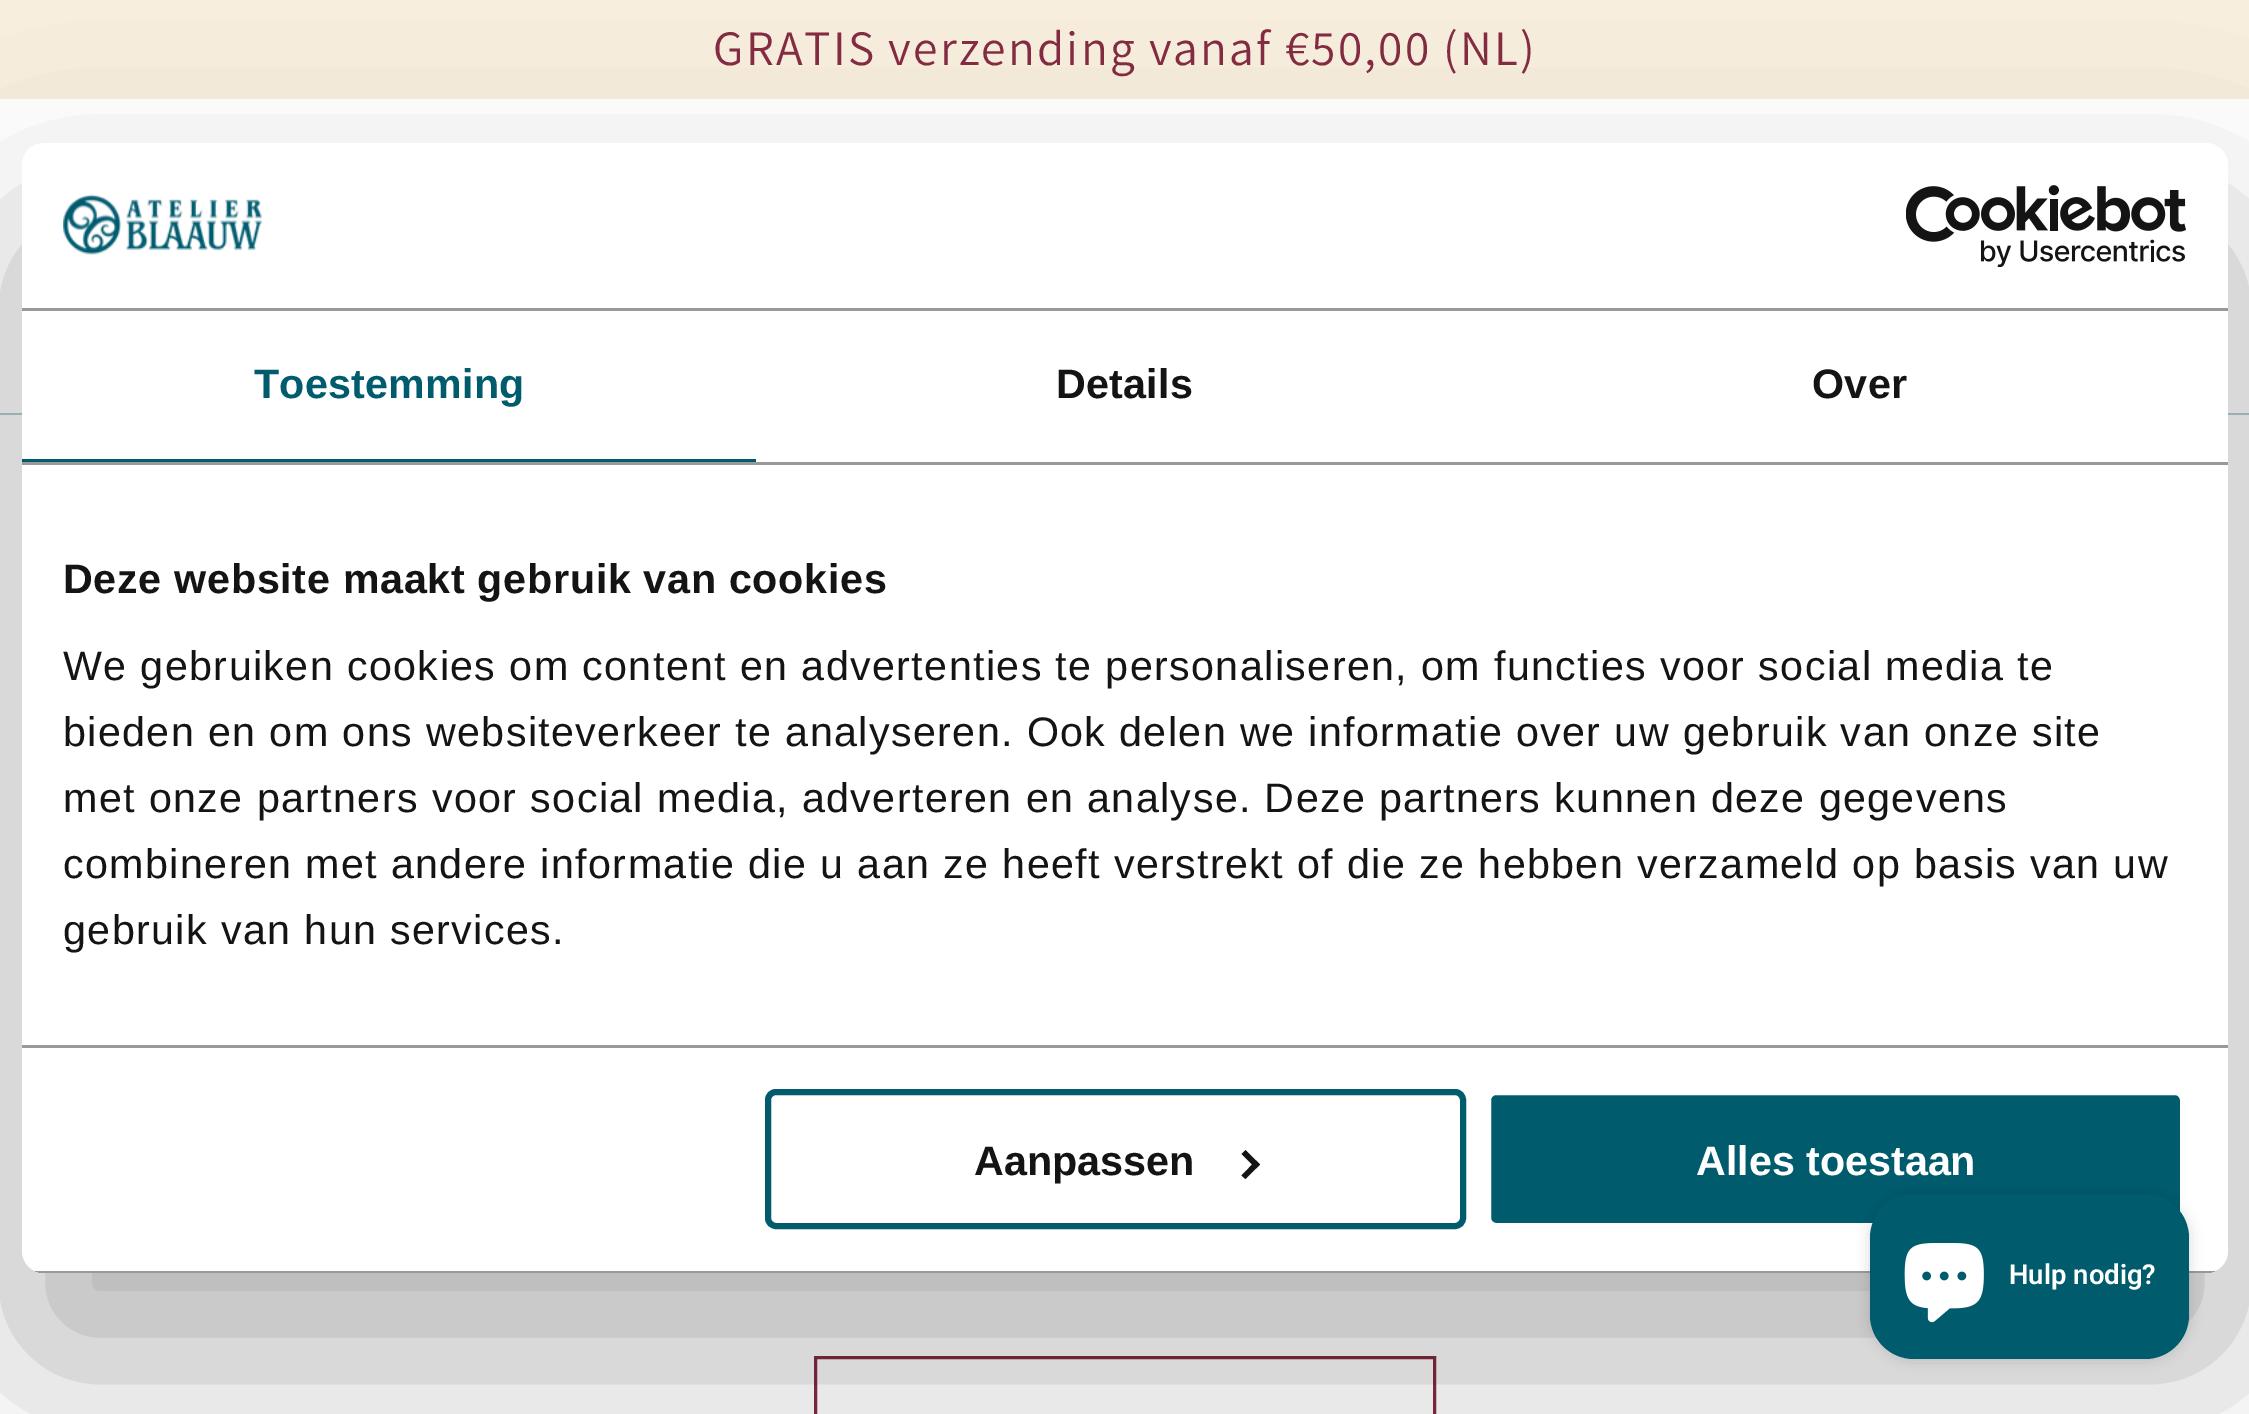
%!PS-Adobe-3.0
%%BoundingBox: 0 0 2249 1414
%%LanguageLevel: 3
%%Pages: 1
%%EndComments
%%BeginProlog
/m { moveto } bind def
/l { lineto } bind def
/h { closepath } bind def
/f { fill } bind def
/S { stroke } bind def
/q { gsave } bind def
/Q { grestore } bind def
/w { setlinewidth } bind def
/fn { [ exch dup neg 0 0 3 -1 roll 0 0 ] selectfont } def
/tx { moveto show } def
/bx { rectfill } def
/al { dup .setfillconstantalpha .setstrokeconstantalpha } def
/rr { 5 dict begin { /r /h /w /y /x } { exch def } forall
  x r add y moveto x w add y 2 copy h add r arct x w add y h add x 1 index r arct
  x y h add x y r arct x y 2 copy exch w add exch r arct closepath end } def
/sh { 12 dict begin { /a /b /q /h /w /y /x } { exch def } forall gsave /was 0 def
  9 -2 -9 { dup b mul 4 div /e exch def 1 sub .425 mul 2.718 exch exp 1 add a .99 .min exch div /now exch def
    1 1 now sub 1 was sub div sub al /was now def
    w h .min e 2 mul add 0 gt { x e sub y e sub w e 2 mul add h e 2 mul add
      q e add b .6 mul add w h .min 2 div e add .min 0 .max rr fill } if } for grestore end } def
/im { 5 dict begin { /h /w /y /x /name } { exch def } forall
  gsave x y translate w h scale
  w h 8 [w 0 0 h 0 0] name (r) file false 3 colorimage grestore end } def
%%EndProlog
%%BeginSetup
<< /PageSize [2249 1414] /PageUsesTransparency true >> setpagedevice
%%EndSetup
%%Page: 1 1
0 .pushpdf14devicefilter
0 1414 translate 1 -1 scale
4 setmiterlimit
1 setgray
0 0 2249 1414 bx
0.969 0.933 0.867 setrgbcolor
0 0 2249 99 bx
/Assistant-Regular 49.5 fn
0.518 0.169 0.259 setrgbcolor
713 65 m 2.15 0 (GRATIS verzending vanaf €50,00 \(NL\)) ashow
0.702 0.808 0.827 setrgbcolor
0 412 m 0 415 l 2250 415 l 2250 102 l 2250 412 l h f
1 setgray
0 412 2249 1 bx
0.518 0.169 0.259 setrgbcolor
3 w
815.5 1357.5 619 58 rectstroke
0 setgray
22 231 2206 1130 22 93.5 0.3 sh
1 setgray
22 143 2206 1130 22 rr f
0.6 setgray
22 308 2206 3 bx
(image0.raw) 63 194 200 61 im
(image1.raw) 1906 185 280 82 im
22 462 2206 3 bx
0 0.357 0.424 setrgbcolor
22 459 734 3 bx
/LiberationSans-Bold 41.25 fn
254 398 m 0.25 0 (Toestemming) ashow
0.078 setgray
1056 398 m 0.25 0 (Details) ashow
1812 398 m 0.25 0 (Over) ashow
0.6 setgray
22 1045 2206 3 bx
0.078 setgray
63 593 m 0.7 0 (Deze website maakt gebruik van cookies) ashow
/LiberationSans-Regular 41.25 fn
63 680 m 1.38 0 (We gebruiken cookies om content en advertenties te personaliseren, om functies voor social media te) ashow
63 746 m 1.38 0 (bieden en om ons websiteverkeer te analyseren. Ook delen we informatie over uw gebruik van onze site) ashow
63 812 m 1.38 0 (met onze partners voor social media, adverteren en analyse. Deze partners kunnen deze gegevens) ashow
63 878 m 1.38 0 (combineren met andere informatie die u aan ze heeft verstrekt of die ze hebben verzameld op basis van uw) ashow
63 944 m 1.38 0 (gebruik van hun services.) ashow
q
22 143 2206 1130 22 rr clip newpath
0.6 setgray
35 1271 2180 2 bx
Q
0 0.357 0.424 setrgbcolor
6 w
768 1092 695 134 8 rr S
/LiberationSans-Bold 41.25 fn
0.078 setgray
(Aanpassen) 974 1175 tx
1245.5 1150 m 1260 1164.5 l 1256 1168.5 l 1241.5 1154 l h f
1256 1160.5 m 1260 1164.5 l 1245.5 1179 l 1241.5 1175.5 l h f
0 0.357 0.424 setrgbcolor
1488 1092 695 134 8 rr q f Q
1 setgray
S
(Alles toestaan) 1696 1175 tx
0 setgray
1870 1194 319 165 44 7 0.15 sh
0 0.357 0.424 setrgbcolor
1870 1194 319 165 44 rr f
(image2.raw) 1904 1243 80 80 im
/Roboto-SemiBold 27.5 fn
1 setgray
(Hulp nodig?) 2009 1284 tx
.poppdf14devicefilter showpage
%%EOF
